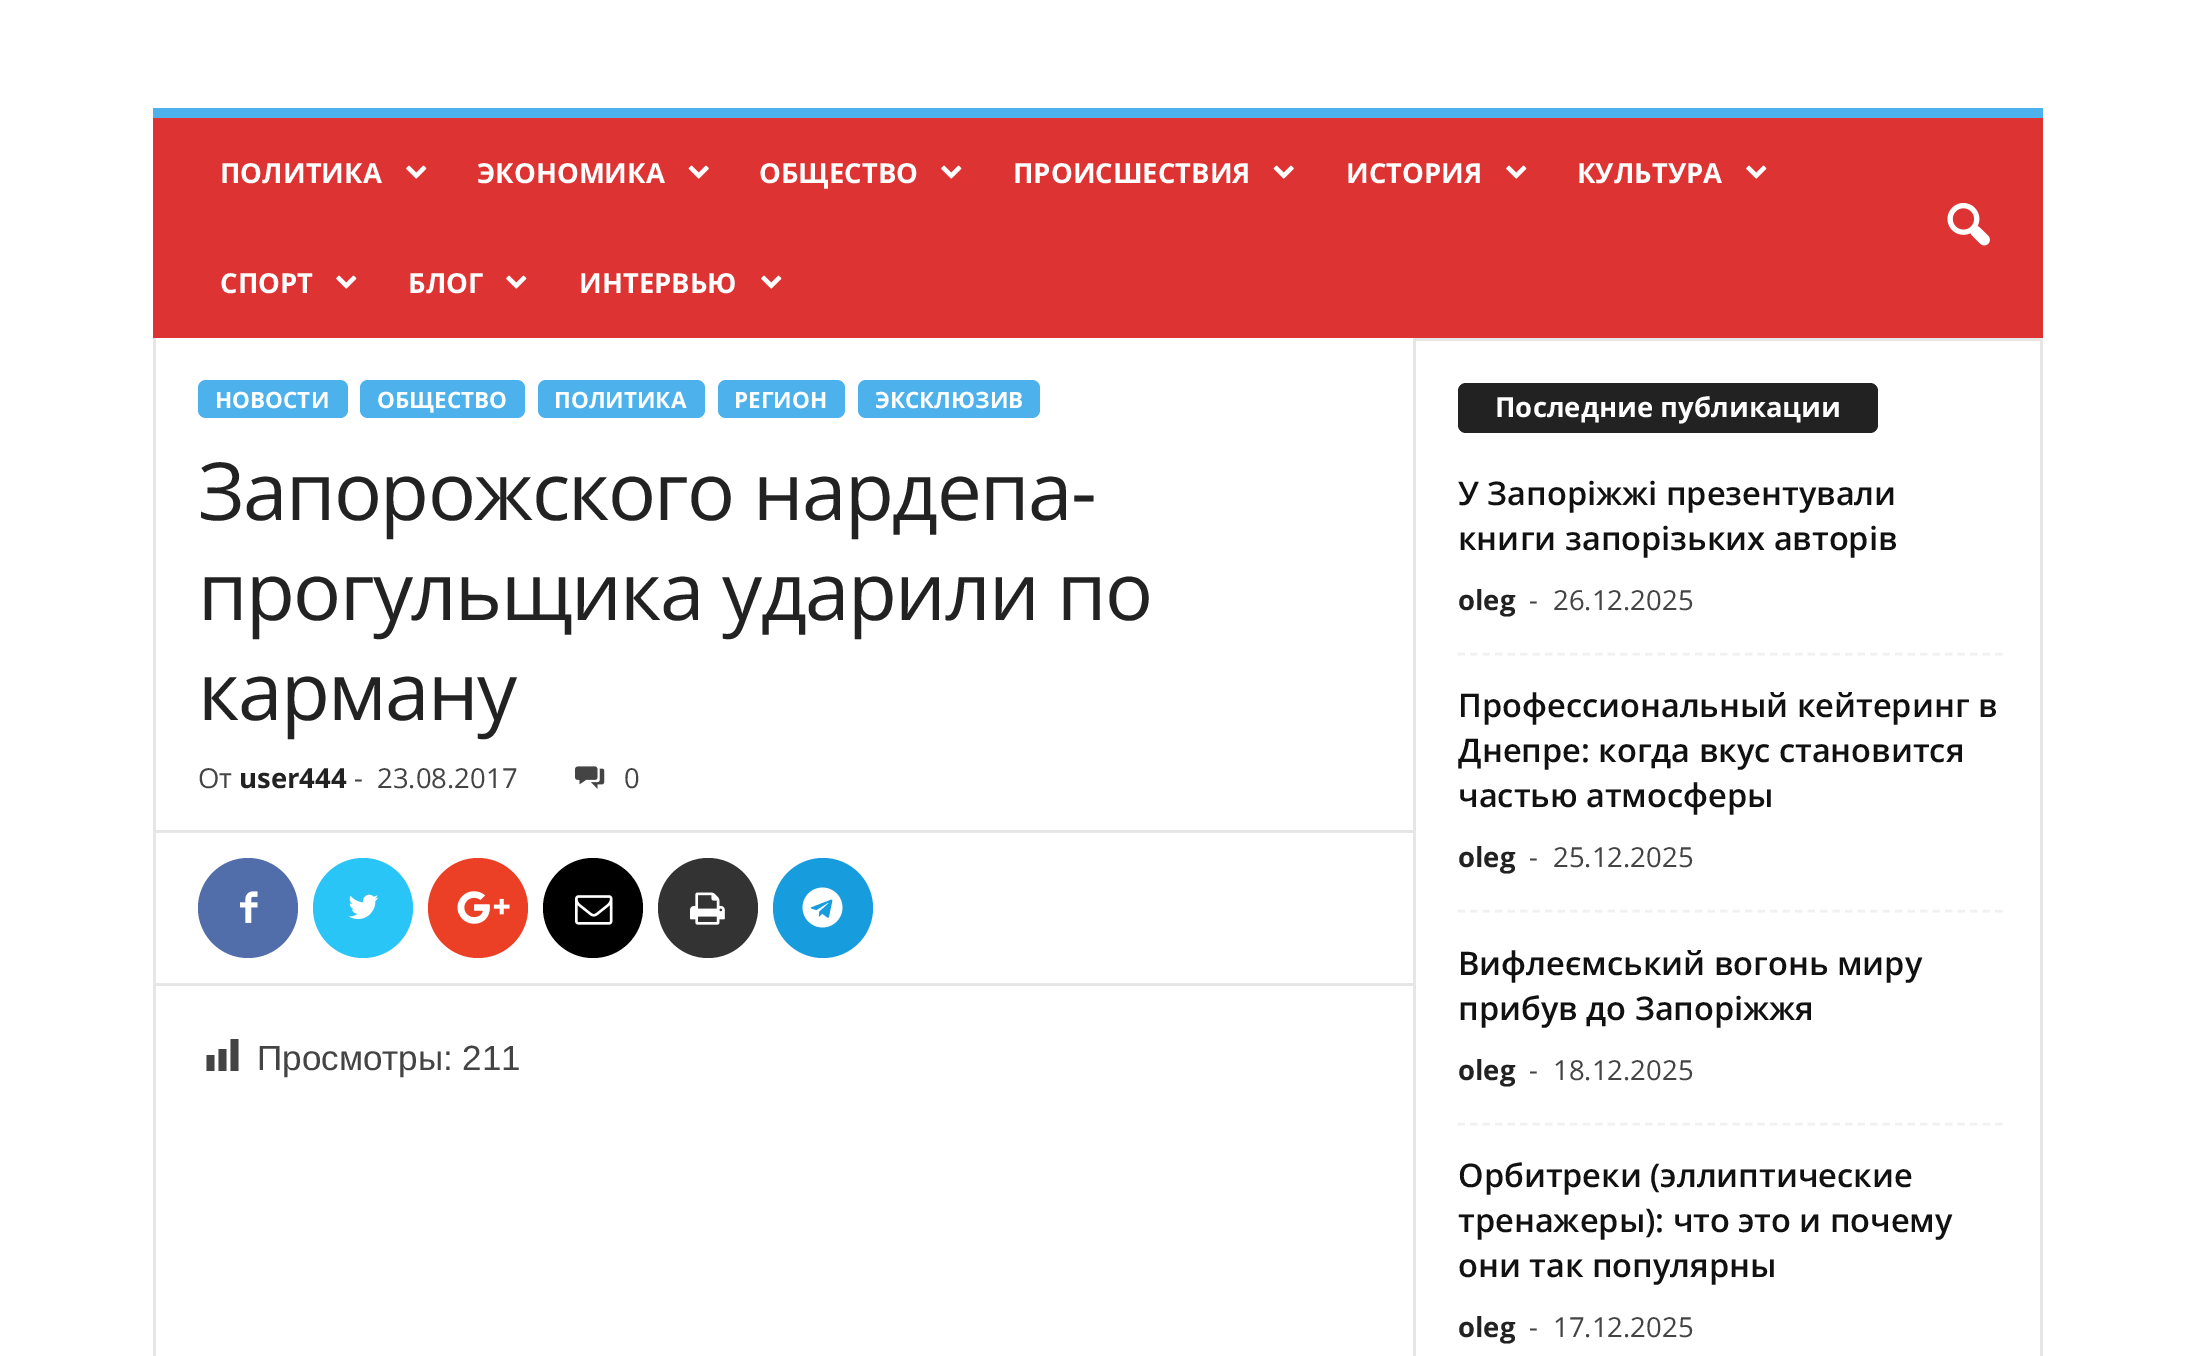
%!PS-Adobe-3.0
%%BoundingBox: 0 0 2195 1356
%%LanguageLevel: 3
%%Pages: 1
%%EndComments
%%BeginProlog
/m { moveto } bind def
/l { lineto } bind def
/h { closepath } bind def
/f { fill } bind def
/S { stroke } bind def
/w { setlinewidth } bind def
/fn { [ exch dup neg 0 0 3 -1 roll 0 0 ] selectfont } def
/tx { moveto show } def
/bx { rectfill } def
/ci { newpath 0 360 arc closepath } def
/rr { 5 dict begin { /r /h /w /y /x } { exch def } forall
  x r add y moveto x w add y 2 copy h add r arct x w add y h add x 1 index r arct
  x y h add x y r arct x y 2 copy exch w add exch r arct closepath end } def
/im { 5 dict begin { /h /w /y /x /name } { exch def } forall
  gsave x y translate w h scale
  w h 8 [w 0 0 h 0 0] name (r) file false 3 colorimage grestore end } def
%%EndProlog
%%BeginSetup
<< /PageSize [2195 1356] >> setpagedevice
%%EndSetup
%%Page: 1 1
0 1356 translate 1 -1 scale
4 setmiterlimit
1 setgray
0 0 2195 1356 bx
0.867 0.2 0.2 setrgbcolor
153 118 1890 220 bx
0.302 0.698 0.925 setrgbcolor
153 108 1890 10 bx
/OpenSans-Bold 27.5 fn
1 setgray
(ПОЛИТИКА) 220 183 tx
(image0.raw) 406 165 21 14 im
(ЭКОНОМИКА) 477 183 tx
(image1.raw) 688 165 21 14 im
(ОБЩЕСТВО) 759 183 tx
(image0.raw) 941 165 21 14 im
(ПРОИСШЕСТВИЯ) 1013 183 tx
(image1.raw) 1273 165 21 14 im
(ИСТОРИЯ) 1346 183 tx
(image0.raw) 1506 165 21 14 im
(КУЛЬТУРА) 1577 183 tx
(image0.raw) 1746 165 21 14 im
(СПОРТ) 220 293 tx
(image0.raw) 336 275 21 14 im
(БЛОГ) 408 293 tx
(image0.raw) 506 275 21 14 im
(ИНТЕРВЬЮ) 579 293 tx
(image0.raw) 761 275 21 14 im
(image2.raw) 1947 203 43 43 im
0.902 setgray
153 338 3 1018 bx
0.302 0.698 0.925 setrgbcolor
198 380 150 38 8 rr f
/OpenSans-Bold 22.5 fn
1 setgray
(НОВОСТИ) 215 408 tx
0.302 0.698 0.925 setrgbcolor
360 380 165 38 8 rr f
1 setgray
(ОБЩЕСТВО) 377 408 tx
0.302 0.698 0.925 setrgbcolor
538 380 167 38 8 rr f
1 setgray
(ПОЛИТИКА) 554 408 tx
0.302 0.698 0.925 setrgbcolor
718 380 127 38 8 rr f
1 setgray
(РЕГИОН) 734 408 tx
0.302 0.698 0.925 setrgbcolor
858 380 182 38 8 rr f
1 setgray
(ЭКСКЛЮЗИВ) 875 408 tx
/OpenSans-Regular 80 fn
0.133 setgray
198 520 m -1.6 0 (Запорожского нардепа-) ashow
198 620 m -1.6 0 (прогульщика ударили по) ashow
198 720 m -1.6 0 (карману) ashow
/OpenSans-Regular 27.5 fn
0.267 setgray
(От) 198 788 tx
/OpenSans-Bold 27.5 fn
0.133 setgray
(user444) 239 788 tx
/OpenSans-Regular 27.5 fn
0.267 setgray
(-) 354 788 tx
(23.08.2017) 377 788 tx
(image3.raw) 575 766 30 23 im
(0) 624 788 tx
0.902 setgray
155 830 1258 3 bx
0.318 0.431 0.671 setrgbcolor
248 908 50 ci f
(image4.raw) 240 891 18 32 im
0.161 0.773 0.965 setrgbcolor
363 908 50 ci f
(image5.raw) 348 894 31 26 im
0.922 0.251 0.149 setrgbcolor
478 908 50 ci f
(image6.raw) 457 891 53 33 im
0 setgray
593 908 50 ci f
(image7.raw) 575 895 38 30 im
0.2 setgray
708 908 50 ci f
(image8.raw) 690 892 35 33 im
0.09 0.612 0.871 setrgbcolor
823 908 50 ci f
(image9.raw) 802 887 41 41 im
0.902 setgray
155 983 1258 3 bx
0.267 setgray
238.5 1071 m 238.5 1039 l 230.5 1039 l 230.5 1071 l h 226.5 1071 m 226.5 1049 l 218.5 1049 l 218.5 1071 l h 214.5 1071 m 214.5 1055 l 206.5 1055 l 206.5 1071 l h f
/LiberationSans-Regular 35 fn
(Просмотры: 211) 257 1070 tx
0.902 setgray
1413 338 3 1018 bx
2040 338 3 1018 bx
1415 338 628 3 bx
0.133 setgray
1458 383 420 50 8 rr f
/OpenSans-Bold 27.5 fn
1 setgray
(Последние публикации) 1495 417 tx
0.945 setgray
2.5 w
[7.5 5] 0 setdash
1457.5 654 m 2002.5 654 l S
/OpenSans-SemiBold 32.5 fn
0.067 setgray
(У Запоріжжі презентували) 1458 505 tx
(книги запорізьких авторів) 1458 550 tx
/OpenSans-Bold 27.5 fn
0.133 setgray
(oleg) 1458 610 tx
/OpenSans-Regular 27.5 fn
0.267 setgray
(-) 1529 610 tx
(26.12.2025) 1553 610 tx
0.945 setgray
1457.5 911 m 2002.5 911 l S
/OpenSans-SemiBold 32.5 fn
0.067 setgray
(Профессиональный кейтеринг в) 1458 717 tx
(Днепре: когда вкус становится) 1458 762 tx
(частью атмосферы) 1458 807 tx
/OpenSans-Bold 27.5 fn
0.133 setgray
(oleg) 1458 867 tx
/OpenSans-Regular 27.5 fn
0.267 setgray
(-) 1529 867 tx
(25.12.2025) 1553 867 tx
0.945 setgray
1457.5 1124 m 2002.5 1124 l S
/OpenSans-SemiBold 32.5 fn
0.067 setgray
(Вифлеємський вогонь миру) 1458 975 tx
(прибув до Запоріжжя) 1458 1020 tx
/OpenSans-Bold 27.5 fn
0.133 setgray
(oleg) 1458 1080 tx
/OpenSans-Regular 27.5 fn
0.267 setgray
(-) 1529 1080 tx
(18.12.2025) 1553 1080 tx
/OpenSans-SemiBold 32.5 fn
0.067 setgray
(Орбитреки \(эллиптические) 1458 1187 tx
(тренажеры\): что это и почему) 1458 1232 tx
(они так популярны) 1458 1277 tx
/OpenSans-Bold 27.5 fn
0.133 setgray
(oleg) 1458 1337 tx
/OpenSans-Regular 27.5 fn
0.267 setgray
(-) 1529 1337 tx
(17.12.2025) 1553 1337 tx
showpage
%%EOF
